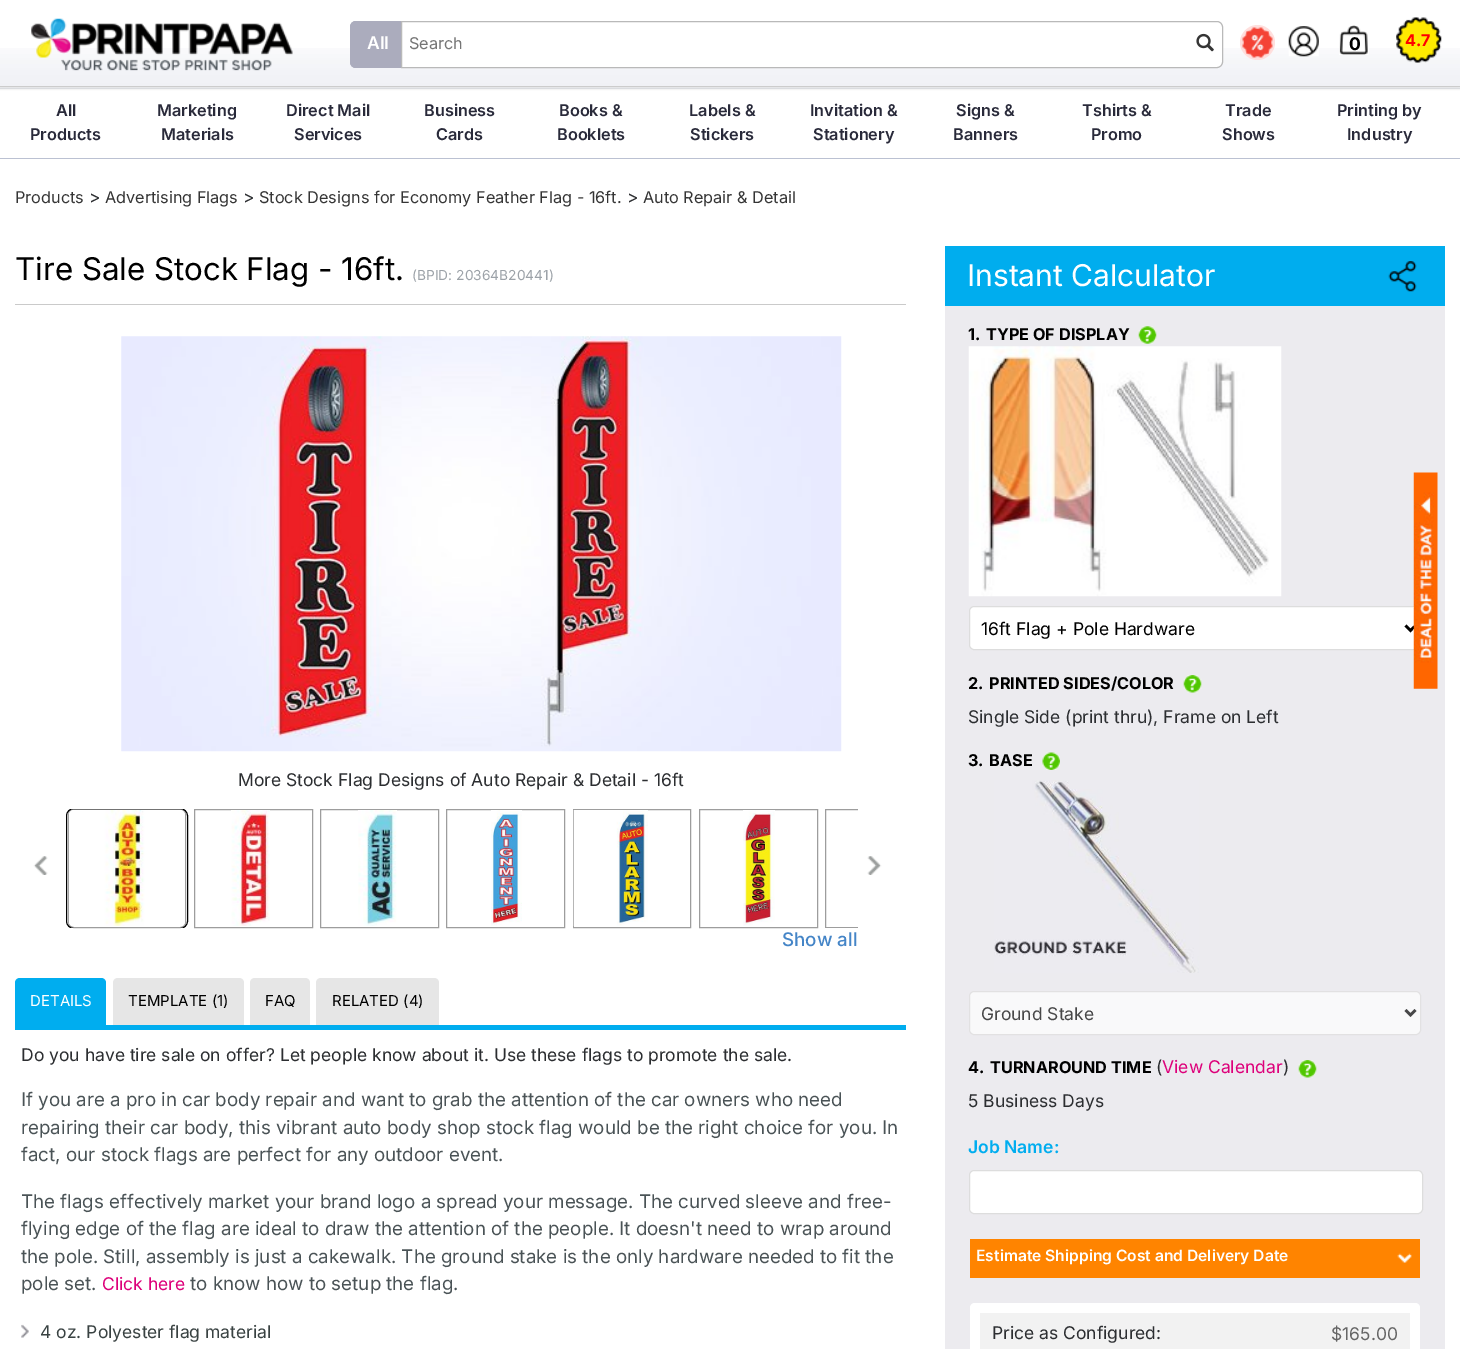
%!PS-Adobe-3.0
%%BoundingBox: 0 0 1460 1349
%%LanguageLevel: 3
%%Pages: 1
%%EndComments
%%BeginProlog
/m { moveto } bind def
/l { lineto } bind def
/c { curveto } bind def
/h { closepath } bind def
/f { fill } bind def
/S { stroke } bind def
/q { gsave } bind def
/Q { grestore } bind def
/w { setlinewidth } bind def
/fn { [ exch dup neg 0 0 3 -1 roll 0 0 ] selectfont } def
/tx { moveto show } def
/bx { rectfill } def
/al { dup .setfillconstantalpha .setstrokeconstantalpha } def
/ci { newpath 0 360 arc closepath } def
/rr { 5 dict begin { /r /h /w /y /x } { exch def } forall
  x r add y moveto x w add y 2 copy h add r arct x w add y h add x 1 index r arct
  x y h add x y r arct x y 2 copy exch w add exch r arct closepath end } def
/sh { 12 dict begin { /a /b /q /h /w /y /x } { exch def } forall gsave /was 0 def
  9 -2 -9 { dup b mul 4 div /e exch def 1 sub .425 mul 2.718 exch exp 1 add a .99 .min exch div /now exch def
    1 1 now sub 1 was sub div sub al /was now def
    w h .min e 2 mul add 0 gt { x e sub y e sub w e 2 mul add h e 2 mul add
      q e add b .6 mul add w h .min 2 div e add .min 0 .max rr fill } if } for grestore end } def
/im { 5 dict begin { /h /w /y /x /name } { exch def } forall
  gsave x y translate w h scale
  w h 8 [w 0 0 h 0 0] name (r) file false 3 colorimage grestore end } def
%%EndProlog
%%BeginSetup
<< /PageSize [1460 1349] /PageUsesTransparency true >> setpagedevice
%%EndSetup
%%Page: 1 1
0 .pushpdf14devicefilter
0 1349 translate 1 -1 scale
4 setmiterlimit
1 setgray
0 0 1460 1349 bx
0.843 0.863 0.914 setrgbcolor
0 88 1460 1 bx
q
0 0 m 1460 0 l 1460 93 l 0 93 l h 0 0 m 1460 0 l 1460 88 l 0 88 l h eoclip newpath
0.859 setgray
-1 -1 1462 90 0 1 1 sh
Q
(image0.raw) 0 48 1460 40 im
0.8 setgray
0 86 1460 1 bx
(image1.raw) 31 18 262 53 im
0.671 0.675 0.741 setrgbcolor
356 21 m 401 21 l 401 68 l 356 68 l 352.5 68 350 65.5 350 62 c 350 27 l 350 23.5 352.5 21 356 21 c h f
356 21 m 401 21 l 401 68 l 356 68 l 353 68 350 65 350 61 c 350 28 l 350 24 353 21 356 21 c h 356 22 m 401 22 l 401 66 l 356 66 l 353 66 351 64 351 61 c 351 28 l 351 25 353 22 356 22 c h eofill
/Inter-SemiBold 17.5 fn
1 setgray
(All) 367 49 tx
401.5 21.5 m 1217 21.5 l 1220 21.5 1222.5 24 1222.5 27 c 1222.5 62 l 1222.5 65 1220 67.5 1217 67.5 c 401.5 67.5 l h q f Q
0.725 setgray
S
/Inter-Regular 16.25 fn
0.459 setgray
(Search) 409 49 tx
(image2.raw) 1196 33 18 19 im
1 0.875 0.867 setrgbcolor
1257.5 42.5 17.5 ci f
(image3.raw) 1242 27 31 31 im
(image4.raw) 1288 26 31 31 im
(image5.raw) 1339 25 30 30 im
/Inter-Bold 17.5 fn
0 setgray
(0) 1349 50 tx
(image6.raw) 1396 17 46 46 im
/Inter-Bold 16.25 fn
1 0 0 setrgbcolor
(4.7) 1405 46 tx
0.733 0.757 0.824 setrgbcolor
0 158 1460 1 bx
/Inter-SemiBold 16.25 fn
0.161 0.165 0.227 setrgbcolor
(All) 56 116 tx
(Products) 30 140 tx
(Marketing) 157 116 tx
(Materials) 161 140 tx
(Direct Mail) 286 116 tx
(Services) 294 140 tx
(Business) 424 116 tx
(Cards) 436 140 tx
(Books &) 559 116 tx
(Booklets) 557 140 tx
(Labels &) 689 116 tx
(Stickers) 690 140 tx
(Invitation &) 810 116 tx
(Stationery) 813 140 tx
(Signs &) 956 116 tx
(Banners) 953 140 tx
(Tshirts &) 1082 116 tx
(Promo) 1091 140 tx
(Trade) 1225 116 tx
(Shows) 1222 140 tx
(Printing by) 1337 116 tx
(Industry) 1347 140 tx
/Inter-Regular 16.25 fn
0.208 setgray
(Products) 15 203 tx
/Inter-Regular 17.5 fn
0.173 0.18 0.192 setrgbcolor
(>) 89 203 tx
/Inter-Regular 16.25 fn
0.208 setgray
(Advertising Flags) 105 203 tx
/Inter-Regular 17.5 fn
0.173 0.18 0.192 setrgbcolor
(>) 243 203 tx
/Inter-Regular 16.25 fn
0.208 setgray
(Stock Designs for Economy Feather Flag - 16ft.) 259 203 tx
/Inter-Regular 17.5 fn
0.173 0.18 0.192 setrgbcolor
(>) 627 203 tx
/Inter-Regular 16.25 fn
0.208 setgray
(Auto Repair & Detail) 643 203 tx
0.792 setgray
15 304 891 1 bx
/Inter-Regular 31.25 fn
0 setgray
(Tire Sale Stock Flag - 16ft.) 15 280 tx
/Inter-Regular 13.75 fn
0.612 0.635 0.659 setrgbcolor
(\(BPID: 20364B20441\)) 412 280 tx
(image7.raw) 121 336 721 416 im
/Inter-Regular 17.5 fn
0.173 0.18 0.192 setrgbcolor
(More Stock Flag Designs of Auto Repair & Detail - 16ft) 238 786 tx
0.616 setgray
68.5 809.5 117 118 5.5 rr S
(image8.raw) 68 810 117 116 im
q
64 809 794 119 rectclip
0 setgray
66.5 808.5 121 120 7.5 rr S
Q
194.5 809.5 118 118 rectstroke
(image9.raw) 231 810 39 116 im
320.5 809.5 118 118 rectstroke
(image10.raw) 358 810 39 116 im
446.5 809.5 118 118 rectstroke
(image11.raw) 491 810 31 116 im
573.5 809.5 117 118 rectstroke
(image12.raw) 573 810 75 117 im
699.5 809.5 118 118 rectstroke
(image13.raw) 743 810 32 116 im
(image15.raw) 867 856 15 19 im
q
64 809 794 119 rectclip
825.5 809.5 118 118 rectstroke
Q
(image14.raw) 33 856 15 19 im
/Inter-Medium 18.75 fn
0.271 0.522 0.78 setrgbcolor
(Show all) 782 946 tx
0 0.678 0.937 setrgbcolor
20 978 m 101 978 l 104 978 106 980 106 983 c 106 1025 l 15 1025 l 15 983 l 15 980 17 978 20 978 c h f
/Inter-Regular 15 fn
1 setgray
(DETAILS) 30 1006 tx
0.902 setgray
118 978 m 239 978 l 242 978 244 980 244 983 c 244 1025 l 113 1025 l 113 983 l 113 980 115 978 118 978 c h f
0 setgray
(TEMPLATE \(1\)) 128 1006 tx
0.902 setgray
255 978 m 305 978 l 308 978 310 980 310 983 c 310 1025 l 250 1025 l 250 983 l 250 980 252 978 255 978 c h f
0 setgray
(FAQ) 265 1006 tx
0.902 setgray
321 978 m 434 978 l 437 978 439 980 439 983 c 439 1025 l 316 1025 l 316 983 l 316 980 318 978 321 978 c h f
0 setgray
(RELATED \(4\)) 332 1006 tx
0 0.678 0.937 setrgbcolor
15 1025 891 5 bx
/Inter-Regular 17.5 fn
0.173 0.18 0.192 setrgbcolor
(Do you have tire sale on offer? Let people know about it. Use these flags to promote the sale.) 21 1061 tx
/Inter-Regular 18.75 fn
0.29 0.325 0.337 setrgbcolor
(If you are a pro in car body repair and want to grab the attention of the car owners who need) 21 1106 tx
(repairing their car body, this vibrant auto body shop stock flag would be the right choice for you. In) 21 1134 tx
(fact, our stock flags are perfect for any outdoor event.) 21 1161 tx
(The flags effectively market your brand logo a spread your message. The curved sleeve and free-) 21 1208 tx
(flying edge of the flag are ideal to draw the attention of the people. It doesn't need to wrap around) 21 1235 tx
(the pole. Still, assembly is just a cakewalk. The ground stake is the only hardware needed to fit the) 21 1263 tx
(pole set.) 21 1290 tx
/Inter-Regular 17.5 fn
0.867 0 0.478 setrgbcolor
(Click here) 102 1290 tx
/Inter-Regular 18.75 fn
0.29 0.325 0.337 setrgbcolor
(to know how to setup the flag.) 190 1290 tx
(image16.raw) 21 1324 8 14 im
/Inter-Regular 17.5 fn
0.224 0.259 0.259 setrgbcolor
(4 oz. Polyester flag material) 40 1338 tx
0.925 0.922 0.937 setrgbcolor
945 306 500 1043 bx
0 0.678 0.933 setrgbcolor
945 246 500 60 bx
/Inter-Regular 30 fn
1 setgray
(Instant Calculator) 967 286 tx
(image17.raw) 1388 261 29 31 im
/Inter-Bold 16.25 fn
0 setgray
(1.) 968 340 tx
(TYPE OF DISPLAY) 986 340 tx
(image18.raw) 1138 326 19 18 im
(image19.raw) 968 346 314 251 im
1 setgray
969.5 606.5 451 43 4.5 rr q f Q
0.867 setgray
S
0 setgray
2.5 w
1405.5 625.5 m 1410.5 630.5 l 1415.5 625.5 l S
/Inter-Regular 17.5 fn
(16ft Flag + Pole Hardware) 981 635 tx
/Inter-Bold 16.25 fn
(2.) 968 689 tx
(PRINTED SIDES/COLOR) 989 689 tx
(image20.raw) 1183 675 19 18 im
/Inter-Regular 17.5 fn
0.173 0.18 0.192 setrgbcolor
(Single Side \(print thru\), Frame on Left) 968 723 tx
/Inter-Bold 16.25 fn
0 setgray
(3.) 968 766 tx
(BASE) 989 766 tx
(image21.raw) 1042 752 18 18 im
(image22.raw) 994 780 205 193 im
0.976 0.976 0.98 setrgbcolor
969.5 991.5 451 43 4.5 rr q f Q
0.886 0.882 0.886 setrgbcolor
1 w
S
0.278 0.278 0.282 setrgbcolor
2.5 w
1405.5 1010 m 1410.5 1015 l 1415.5 1010 l S
/Inter-Regular 17.5 fn
(Ground Stake) 981 1020 tx
/Inter-Bold 16.25 fn
0 setgray
(4.) 968 1073 tx
(TURNAROUND TIME) 990 1073 tx
/Inter-Regular 17.5 fn
0.173 0.18 0.192 setrgbcolor
(\() 1156 1073 tx
0.867 0 0.478 setrgbcolor
(View Calendar) 1162 1073 tx
0.173 0.18 0.192 setrgbcolor
(\)) 1283 1073 tx
(image20.raw) 1298 1060 19 18 im
(5 Business Days) 968 1107 tx
/Inter-SemiBold 17.5 fn
0 0.678 0.937 setrgbcolor
(Job Name:) 968 1153 tx
1 setgray
969.5 1170.5 453 43 4.5 rr q f Q
0.867 setgray
1 w
S
1 0.518 0 setrgbcolor
970 1239 450 39 bx
(image23.raw) 1397 1253 15 10 im
/Inter-SemiBold 15.6 fn
1 setgray
(Estimate Shipping Cost and Delivery Date) 976 1261 tx
975 1303 m 1415 1303 l 1418 1303 1420 1305 1420 1308 c 1420 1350 l 970 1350 l 970 1308 l 970 1305 972 1303 975 1303 c h f
0.949 setgray
980 1313 430 36 bx
/Inter-Regular 17.5 fn
0.173 0.18 0.192 setrgbcolor
(Price as Configured:) 992 1339 tx
0.4 setgray
($165.00) 1331 1340 tx
(image24.raw) 1413 472 25 217 im
.poppdf14devicefilter showpage
%%EOF
